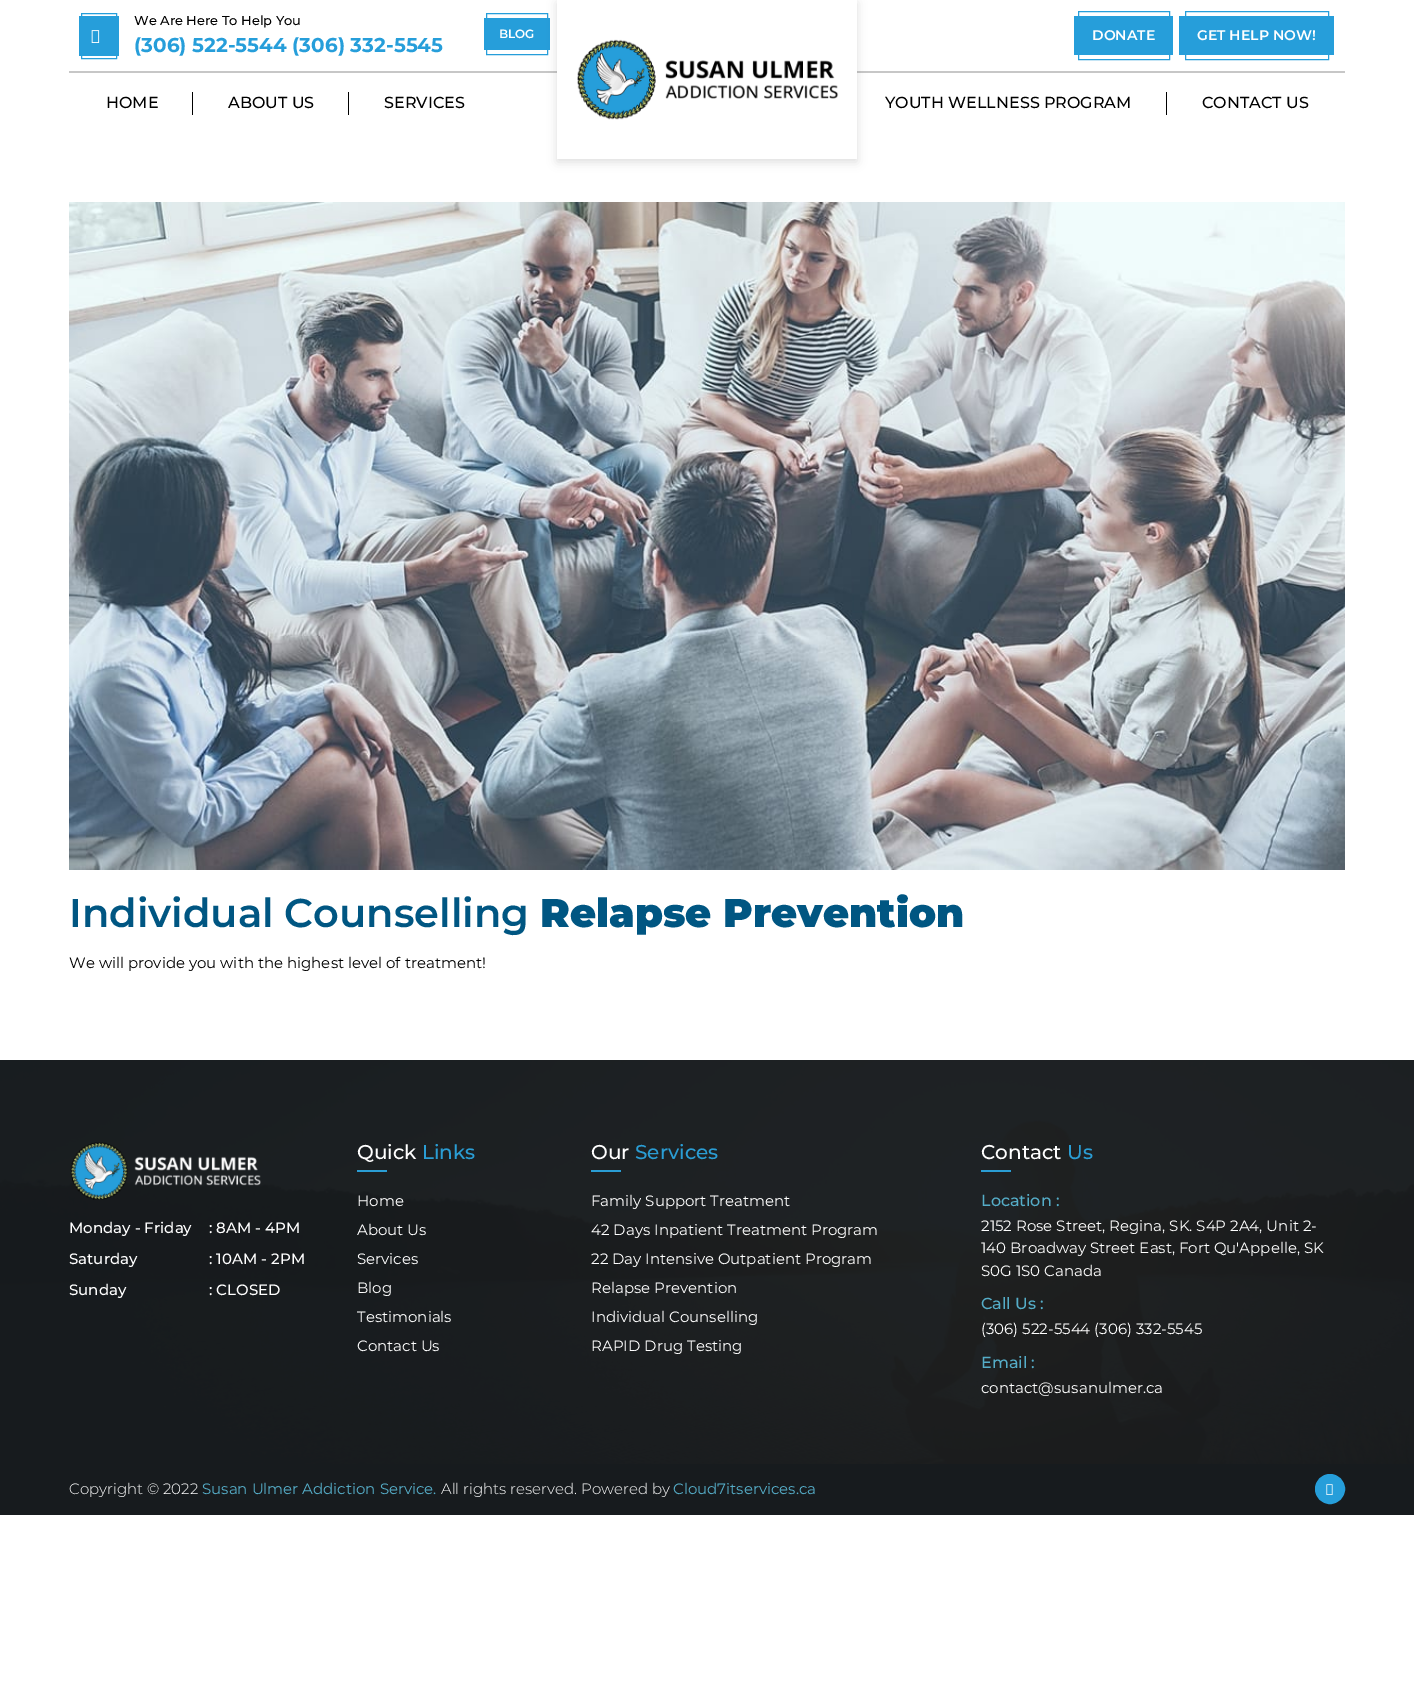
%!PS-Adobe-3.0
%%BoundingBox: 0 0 1414 1684
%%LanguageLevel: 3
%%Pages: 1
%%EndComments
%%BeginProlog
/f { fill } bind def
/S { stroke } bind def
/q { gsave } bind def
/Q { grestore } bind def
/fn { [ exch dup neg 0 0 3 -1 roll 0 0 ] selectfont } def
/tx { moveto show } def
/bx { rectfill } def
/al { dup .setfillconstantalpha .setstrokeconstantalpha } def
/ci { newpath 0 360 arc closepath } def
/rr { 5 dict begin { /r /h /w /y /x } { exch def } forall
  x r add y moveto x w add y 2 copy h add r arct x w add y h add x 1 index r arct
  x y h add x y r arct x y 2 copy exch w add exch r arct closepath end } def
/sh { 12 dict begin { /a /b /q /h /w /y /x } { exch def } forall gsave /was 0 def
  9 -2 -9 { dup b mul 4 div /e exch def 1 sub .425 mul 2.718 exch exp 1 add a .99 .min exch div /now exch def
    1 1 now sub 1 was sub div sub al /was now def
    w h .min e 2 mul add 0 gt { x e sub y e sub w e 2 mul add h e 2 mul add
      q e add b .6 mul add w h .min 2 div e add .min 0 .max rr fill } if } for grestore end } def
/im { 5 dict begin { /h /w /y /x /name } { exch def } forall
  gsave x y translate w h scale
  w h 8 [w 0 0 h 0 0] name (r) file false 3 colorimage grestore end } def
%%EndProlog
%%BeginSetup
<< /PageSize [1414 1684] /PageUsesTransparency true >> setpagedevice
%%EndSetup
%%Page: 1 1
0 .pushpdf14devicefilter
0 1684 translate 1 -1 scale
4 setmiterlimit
1 setgray
0 0 1414 1684 bx
0.78 setgray
69 71 1276 2 bx
0.149 0.62 0.855 setrgbcolor
81.5 13.5 35 45 rectstroke
79 16 40 40 bx
(image0.raw) 91 30 9 13 im
/Montserrat-Medium 13 fn
0 setgray
(We Are Here To Help You) 134 25 tx
0.149 0.62 0.855 setrgbcolor
486.5 13.5 61 41 rectstroke
484 18 66 32 bx
/Montserrat-SemiBold 12 fn
1 setgray
(BLOG) 499 38 tx
/Montserrat-Bold 20 fn
0.149 0.62 0.855 setrgbcolor
(\(306\) 522-5544 \(306\) 332-5545) 134 52 tx
1078.5 11.5 91 48 rectstroke
1074 16 99 39 bx
/Montserrat-SemiBold 14 fn
1 setgray
(DONATE) 1092 40 tx
0.149 0.62 0.855 setrgbcolor
1185.5 11.5 143 48 rectstroke
1179 16 155 39 bx
1 setgray
(GET HELP NOW!) 1197 40 tx
0 setgray
557 3 300 159 0 5 0.13 sh
1 setgray
557 0 300 159 bx
(image1.raw) 577 39 262 81 im
/Montserrat-Medium 16 fn
0 setgray
(HOME) 106 108 tx
192 92 1 23 bx
(ABOUT US) 228 108 tx
348 92 1 23 bx
(SERVICES) 384 108 tx
(YOUTH WELLNESS PROGRAM) 885 108 tx
1166 92 1 23 bx
(CONTACT US) 1202 108 tx
(image2.raw) 69 202 1276 668 im
/Montserrat-SemiBold 40 fn
0 0.337 0.51 setrgbcolor
(Individual Counselling) 69 927 tx
/Montserrat-Black 40 fn
(Relapse Prevention) 540 927 tx
/Montserrat-Regular 15 fn
0 setgray
(We will provide you with the highest level of treatment!) 69 968 tx
(image3.raw) 0 1060 1414 404 im
(image4.raw) 70 1142 191 58 im
/Montserrat-Medium 15 fn
1 setgray
(Monday - Friday) 69 1233 tx
(: 8AM - 4PM) 209 1233 tx
(Saturday) 69 1264 tx
(: 10AM - 2PM) 209 1264 tx
(Sunday) 69 1295 tx
(: CLOSED) 209 1295 tx
/Montserrat-Medium 20 fn
(Quick) 357 1159 tx
0.165 0.616 0.831 setrgbcolor
(Links) 422 1159 tx
357 1170 30 2 bx
/Montserrat-Regular 15 fn
1 setgray
(Home) 357 1206 tx
(About Us) 357 1235 tx
(Services) 357 1264 tx
(Blog) 357 1293 tx
(Testimonials) 357 1322 tx
(Contact Us) 357 1351 tx
/Montserrat-Medium 20 fn
(Our) 591 1159 tx
0.165 0.616 0.831 setrgbcolor
(Services) 635 1159 tx
591 1170 30 2 bx
/Montserrat-Regular 15 fn
1 setgray
(Family Support Treatment) 591 1206 tx
(42 Days Inpatient Treatment Program) 591 1235 tx
(22 Day Intensive Outpatient Program) 591 1264 tx
(Relapse Prevention) 591 1293 tx
(Individual Counselling) 591 1322 tx
(RAPID Drug Testing) 591 1351 tx
/Montserrat-Medium 20 fn
(Contact) 981 1159 tx
0.165 0.616 0.831 setrgbcolor
(Us) 1067 1159 tx
981 1170 30 2 bx
/Montserrat-Medium 16 fn
0.333 0.678 0.784 setrgbcolor
(Location :) 981 1206 tx
/Montserrat-Regular 15 fn
1 setgray
(2152 Rose Street, Regina, SK. S4P 2A4, Unit 2-) 981 1231 tx
(140 Broadway Street East, Fort Qu'Appelle, SK) 981 1253 tx
(S0G 1S0 Canada) 981 1276 tx
/Montserrat-Medium 16 fn
0.333 0.678 0.784 setrgbcolor
(Call Us :) 981 1309 tx
/Montserrat-Regular 15 fn
1 setgray
(\(306\) 522-5544 \(306\) 332-5545) 981 1334 tx
/Montserrat-Medium 16 fn
0.333 0.678 0.784 setrgbcolor
(Email :) 981 1368 tx
/Montserrat-Regular 15 fn
1 setgray
(contact@susanulmer.ca) 981 1393 tx
0.09 0.106 0.118 setrgbcolor
0 1464 1414 51 bx
/Montserrat-Light 15 fn
1 setgray
(Copyright © 2022) 69 1494 tx
/Montserrat-Regular 15 fn
0.333 0.678 0.784 setrgbcolor
(Susan Ulmer Addiction Service.) 202 1494 tx
/Montserrat-Light 15 fn
1 setgray
(All rights reserved. Powered by) 441 1494 tx
/Montserrat-Regular 15 fn
0.333 0.678 0.784 setrgbcolor
(Cloud7itservices.ca) 673 1494 tx
0.149 0.62 0.855 setrgbcolor
1330 1489 14.5 ci q f Q
S
(image5.raw) 1326 1484 7 11 im
.poppdf14devicefilter showpage
%%EOF
